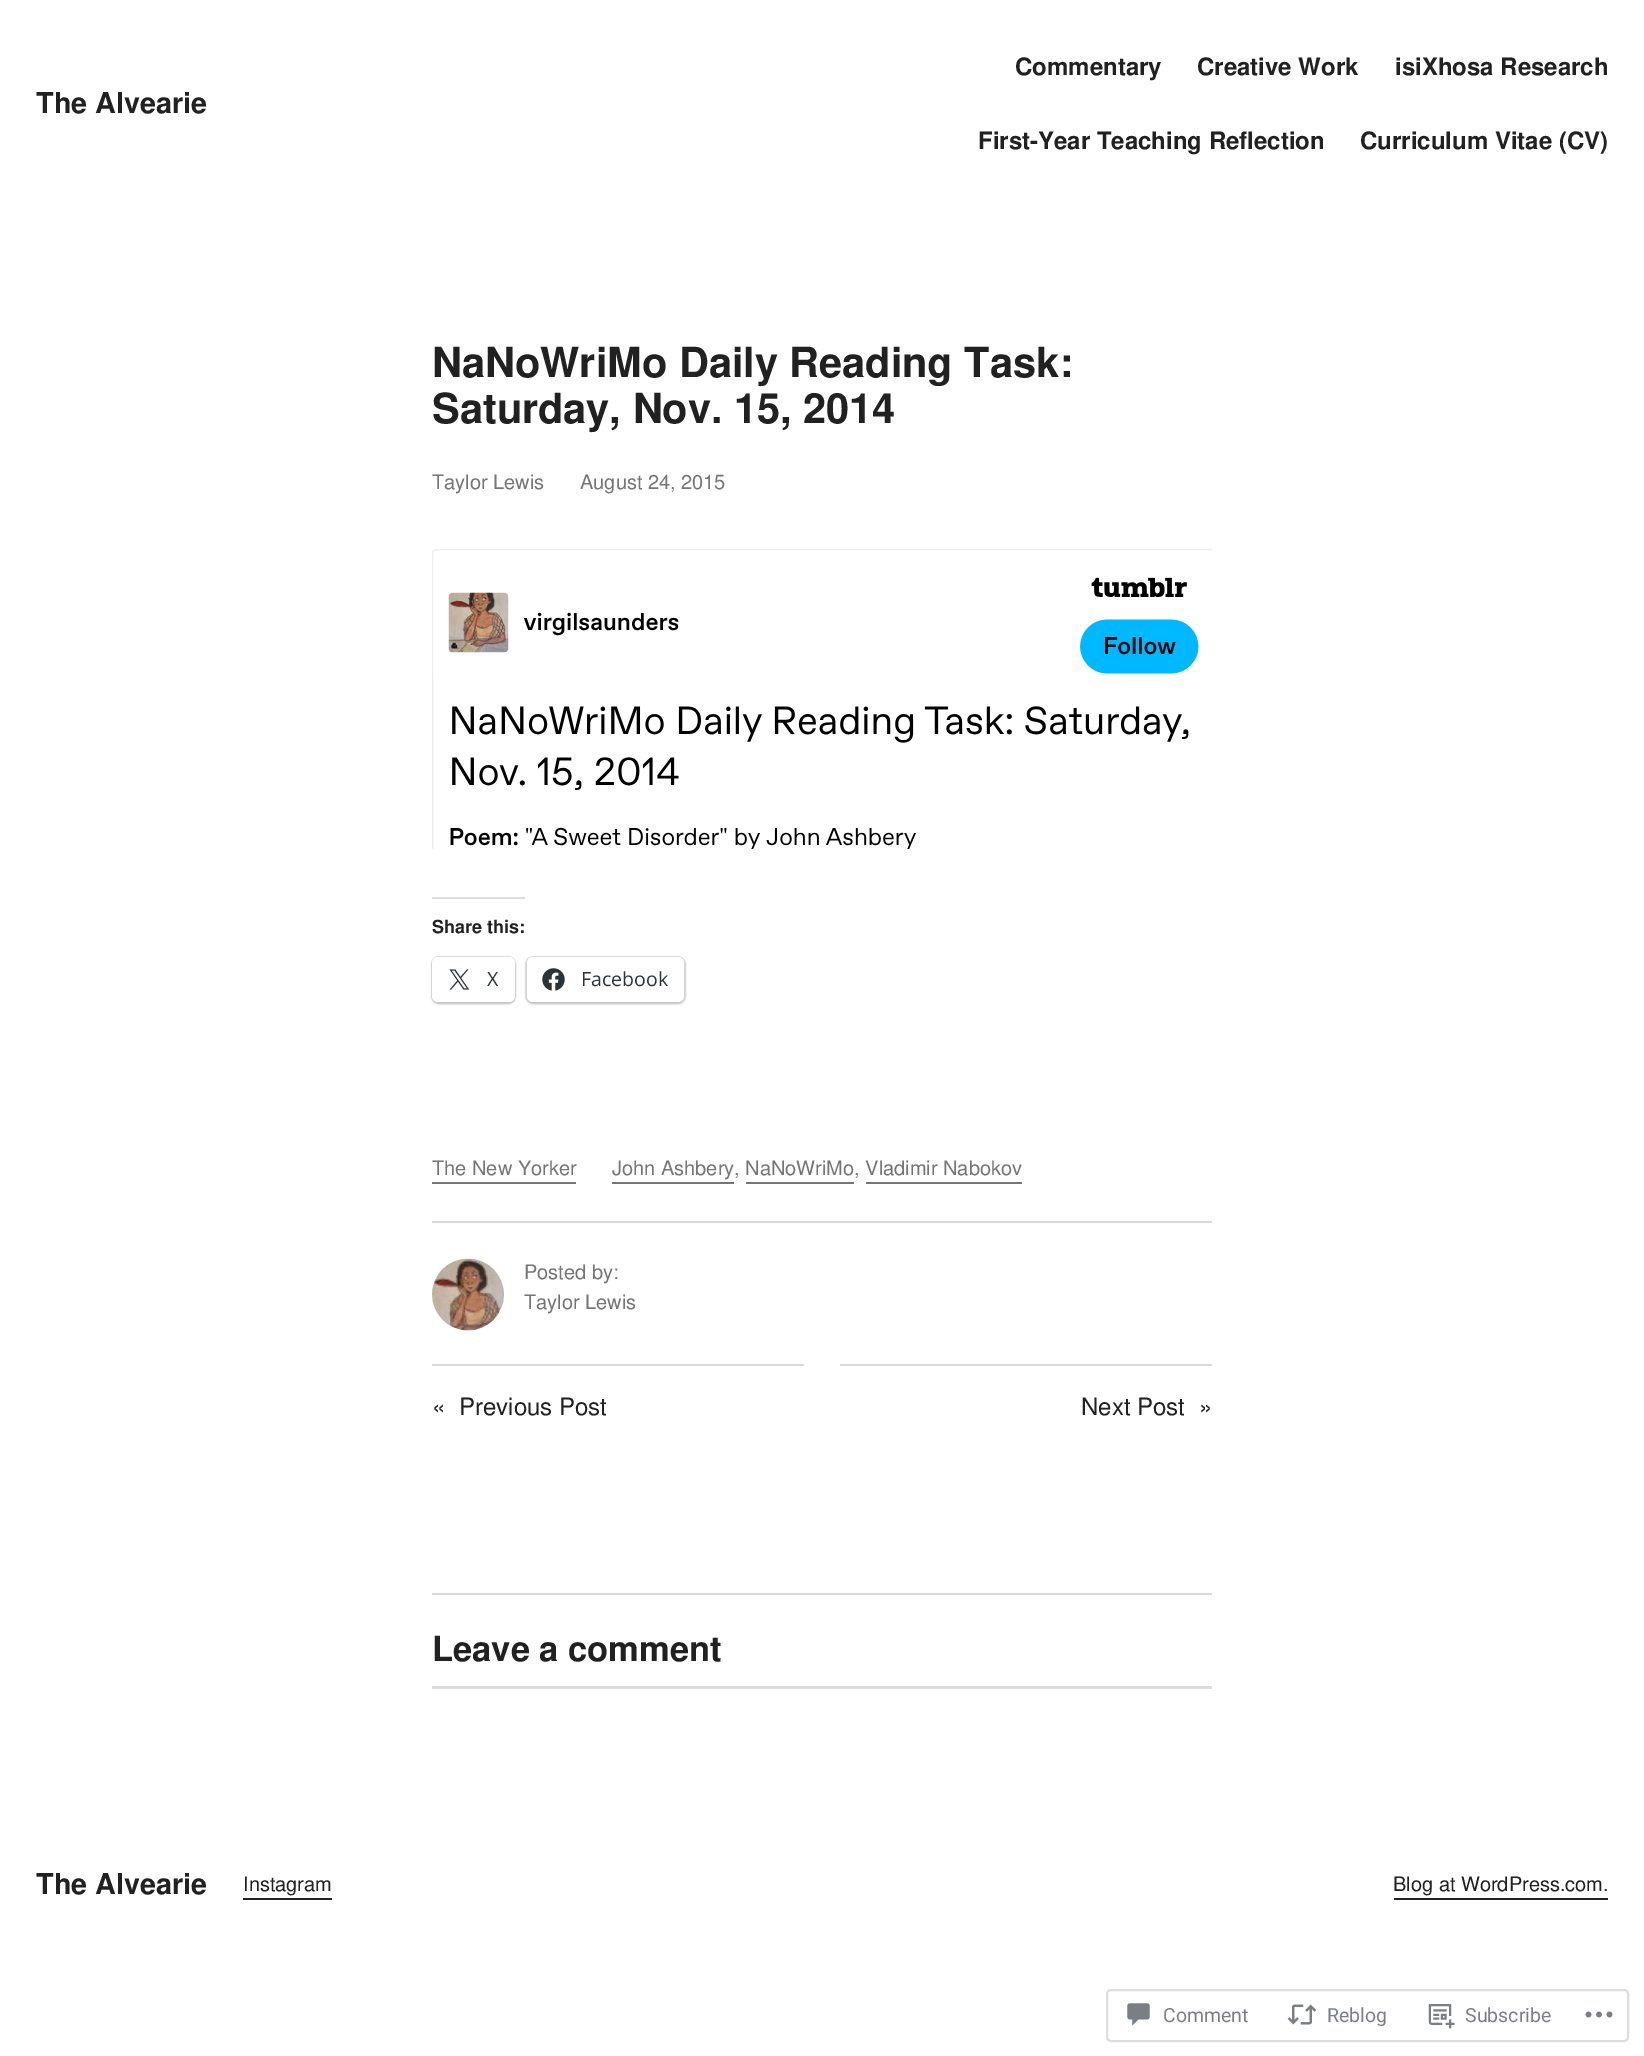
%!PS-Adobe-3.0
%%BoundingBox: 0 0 1644 2056
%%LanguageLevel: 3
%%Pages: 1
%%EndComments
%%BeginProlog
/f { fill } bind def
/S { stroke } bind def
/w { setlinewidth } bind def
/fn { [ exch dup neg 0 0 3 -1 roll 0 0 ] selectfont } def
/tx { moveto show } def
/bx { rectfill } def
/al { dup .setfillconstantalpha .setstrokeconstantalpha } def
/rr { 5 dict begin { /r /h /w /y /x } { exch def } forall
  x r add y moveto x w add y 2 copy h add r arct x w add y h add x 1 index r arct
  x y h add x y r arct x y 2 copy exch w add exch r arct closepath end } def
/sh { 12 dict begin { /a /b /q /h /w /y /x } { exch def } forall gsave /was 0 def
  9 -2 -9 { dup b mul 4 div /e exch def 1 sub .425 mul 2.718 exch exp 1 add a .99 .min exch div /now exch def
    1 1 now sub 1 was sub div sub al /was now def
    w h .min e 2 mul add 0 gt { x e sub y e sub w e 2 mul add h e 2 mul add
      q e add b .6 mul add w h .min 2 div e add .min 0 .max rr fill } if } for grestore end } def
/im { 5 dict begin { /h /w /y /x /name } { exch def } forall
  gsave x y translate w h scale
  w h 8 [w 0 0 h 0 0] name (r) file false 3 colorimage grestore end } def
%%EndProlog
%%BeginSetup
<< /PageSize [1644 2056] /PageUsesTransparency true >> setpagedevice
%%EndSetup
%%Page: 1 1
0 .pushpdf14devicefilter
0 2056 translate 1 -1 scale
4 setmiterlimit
1 setgray
0 0 1644 2056 bx
/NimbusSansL-Bold 28.75 fn
0.129 setgray
(The Alvearie) 36 113 tx
/NimbusSansL-Bold 24 fn
(Commentary) 1015 75 tx
(Creative Work) 1197 75 tx
(isiXhosa Research) 1395 75 tx
(First-Year Teaching Reflection) 978 149 tx
(Curriculum Vitae \(CV\)) 1360 149 tx
/NimbusSansL-Bold 41.5 fn
(NaNoWriMo Daily Reading Task:) 432 377 tx
(Saturday, Nov. 15, 2014) 432 423 tx
/NimbusSansL-Regular 20 fn
0.459 setgray
(Taylor Lewis) 432 489 tx
(August 24, 2015) 580 489 tx
(image0.raw) 432 549 780 300 im
0.863 0.863 0.871 setrgbcolor
432 897 93 2 bx
/NimbusSansL-Bold 18 fn
0.129 setgray
(Share this:) 432 933 tx
0.878 setgray
2 w
432 957 83 46 7 rr S
0 setgray
432 959 83 45 6 1.5 0.12 sh
1 setgray
432 957 83 45 6 rr f
(image1.raw) 449 969 21 21 im
/OpenSans-Regular 19.5 fn
0.173 0.2 0.22 setrgbcolor
(X) 487 986 tx
0.878 setgray
526 957 159 46 7 rr S
0 setgray
527 959 157 45 6 1.5 0.12 sh
1 setgray
527 957 157 45 6 rr f
(image2.raw) 542 968 23 23 im
0.173 0.2 0.22 setrgbcolor
(Facebook) 581 986 tx
/NimbusSansL-Regular 20 fn
0.459 setgray
(The New Yorker) 432 1175 tx
432 1182 144 2 bx
(John Ashbery, NaNoWriMo, Vladimir Nabokov) 612 1175 tx
612 1182 122 2 bx
746 1182 108 2 bx
866 1182 156 2 bx
0.851 setgray
432 1221 780 2 bx
(image3.raw) 432 1258 72 73 im
0.459 setgray
(Posted by:) 524 1279 tx
(Taylor Lewis) 524 1309 tx
0.851 setgray
432 1364 372 2 bx
840 1364 372 2 bx
/NimbusSansL-Regular 24 fn
0.129 setgray
(«) 432 1415 tx
(Previous Post) 459 1415 tx
(Next Post) 1081 1415 tx
(») 1199 1415 tx
0.851 setgray
432 1593 780 2 bx
/NimbusSansL-Bold 34.5 fn
0.129 setgray
(Leave a comment) 432 1661 tx
0.863 0.863 0.871 setrgbcolor
432 1686 780 3 bx
/NimbusSansL-Bold 28.75 fn
0.129 setgray
(The Alvearie) 36 1894 tx
/NimbusSansL-Regular 20 fn
(Instagram) 243 1891 tx
243 1898 89 2 bx
(Blog at WordPress.com.) 1393 1891 tx
1394 1898 214 2 bx
0.867 0.867 0.875 setrgbcolor
1107 1990 521 51 4 rr S
(image4.raw) 1127 2003 23 23 im
/Roboto-Regular 19.5 fn
0.482 0.498 0.522 setrgbcolor
(Comment) 1163 2022 tx
(image5.raw) 1287 2004 30 21 im
(Reblog) 1327 2022 tx
(image6.raw) 1428 2004 27 25 im
(Subscribe) 1465 2022 tx
(image7.raw) 1585 2011 28 7 im
.poppdf14devicefilter showpage
%%EOF
